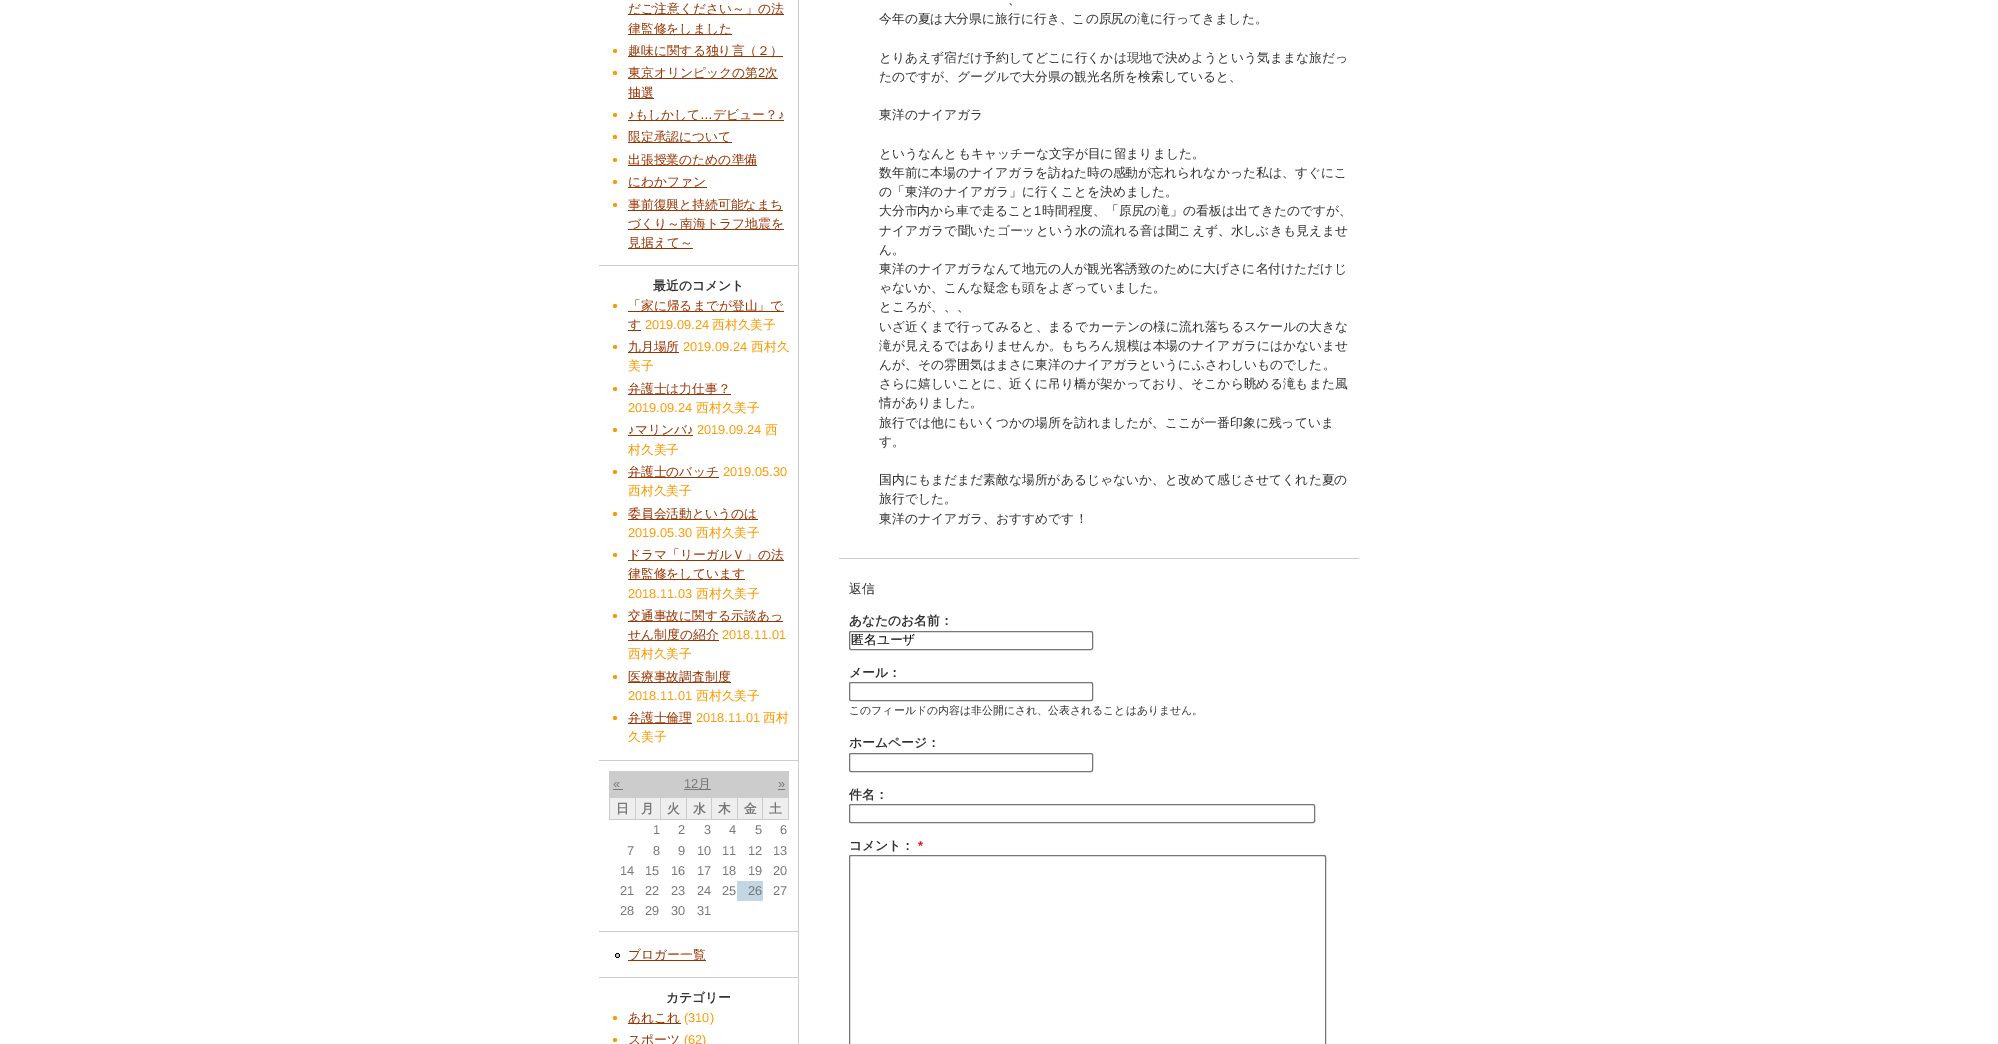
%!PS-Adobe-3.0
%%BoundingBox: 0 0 1998 1044
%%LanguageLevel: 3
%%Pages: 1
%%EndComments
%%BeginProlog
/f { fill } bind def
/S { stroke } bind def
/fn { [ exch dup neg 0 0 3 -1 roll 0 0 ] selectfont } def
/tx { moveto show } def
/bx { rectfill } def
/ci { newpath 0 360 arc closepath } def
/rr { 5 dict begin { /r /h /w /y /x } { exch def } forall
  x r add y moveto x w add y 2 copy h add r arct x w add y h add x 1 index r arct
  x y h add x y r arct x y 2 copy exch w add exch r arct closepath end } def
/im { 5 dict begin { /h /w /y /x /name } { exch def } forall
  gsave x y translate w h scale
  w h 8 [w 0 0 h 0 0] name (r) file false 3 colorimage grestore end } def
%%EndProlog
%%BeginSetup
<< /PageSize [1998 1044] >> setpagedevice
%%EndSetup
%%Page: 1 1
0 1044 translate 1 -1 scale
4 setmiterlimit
1 setgray
0 0 1998 1044 bx
0.8 setgray
798 0 1 1044 bx
599 265 200 1 bx
0.6 0.2 0 setrgbcolor
628 14 156 1 bx
/WenQuanYiZenHei-Medium 12.8 fn
(だご注意ください～」の法) 628 13 tx
628 34 104 1 bx
(律監修をしました) 628 33 tx
1 0.6 0 setrgbcolor
615 51 2 ci f
0.6 0.2 0 setrgbcolor
628 56 155 1 bx
(趣味に関する独り言（２）) 628 55 tx
1 0.6 0 setrgbcolor
615 73 2 ci f
0.6 0.2 0 setrgbcolor
628 78 150 1 bx
(東京オリンピックの第) 628 77 tx
/LiberationSans-Regular 12.8 fn
(2) 758 77 tx
/WenQuanYiZenHei-Medium 12.8 fn
(次) 765 77 tx
628 98 26 1 bx
(抽選) 628 97 tx
1 0.6 0 setrgbcolor
615 115 2 ci f
/LiberationSans-Regular 12.8 fn
0.6 0.2 0 setrgbcolor
(♪) 628 119 tx
628 120 156 1 bx
/WenQuanYiZenHei-Medium 12.8 fn
(もしかして) 635 119 tx
(デビュー？) 713 119 tx
/LiberationSans-Regular 12.8 fn
(♪) 778 119 tx
(…) 700 119 tx
1 0.6 0 setrgbcolor
615 137 2 ci f
0.6 0.2 0 setrgbcolor
628 142 104 1 bx
/WenQuanYiZenHei-Medium 12.8 fn
(限定承認について) 628 141 tx
1 0.6 0 setrgbcolor
615 160 2 ci f
0.6 0.2 0 setrgbcolor
628 165 129 1 bx
(出張授業のための準備) 628 164 tx
1 0.6 0 setrgbcolor
615 182 2 ci f
0.6 0.2 0 setrgbcolor
628 187 79 1 bx
(にわかファン) 628 186 tx
1 0.6 0 setrgbcolor
615 205 2 ci f
0.6 0.2 0 setrgbcolor
628 210 155 1 bx
(事前復興と持続可能なまち) 628 209 tx
628 229 156 1 bx
(づくり～南海トラフ地震を) 628 228 tx
628 248 65 1 bx
(見据えて～) 628 247 tx
0.8 setgray
599 760 200 1 bx
/WenQuanYiZenHei-Bold 12.8 fn
0.2 setgray
(最近のコメント) 653 290 tx
1 0.6 0 setrgbcolor
615 306 2 ci f
0.6 0.2 0 setrgbcolor
628 311 156 1 bx
/WenQuanYiZenHei-Medium 12.8 fn
(「家に帰るまでが登山」で) 628 310 tx
628 330 13 1 bx
(す) 628 329 tx
/LiberationSans-Regular 12.8 fn
1 0.6 0 setrgbcolor
(2019.09.24) 645 329 tx
/WenQuanYiZenHei-Medium 12.8 fn
(西村久美子) 712 329 tx
615 347 2 ci f
0.6 0.2 0 setrgbcolor
628 352 51 1 bx
(九月場所) 628 351 tx
/LiberationSans-Regular 12.8 fn
1 0.6 0 setrgbcolor
(2019.09.24) 683 351 tx
/WenQuanYiZenHei-Medium 12.8 fn
(西村久) 751 351 tx
(美子) 628 370 tx
615 389 2 ci f
0.6 0.2 0 setrgbcolor
628 394 103 1 bx
(弁護士は力仕事？) 628 393 tx
/LiberationSans-Regular 12.8 fn
1 0.6 0 setrgbcolor
(2019.09.24) 628 412 tx
/WenQuanYiZenHei-Medium 12.8 fn
(西村久美子) 696 412 tx
615 430 2 ci f
/LiberationSans-Regular 12.8 fn
0.6 0.2 0 setrgbcolor
(♪) 628 434 tx
628 435 65 1 bx
/WenQuanYiZenHei-Medium 12.8 fn
(マリンバ) 635 434 tx
/LiberationSans-Regular 12.8 fn
(♪) 687 434 tx
1 0.6 0 setrgbcolor
(2019.09.24) 697 434 tx
/WenQuanYiZenHei-Medium 12.8 fn
(西) 765 434 tx
(村久美子) 628 454 tx
615 472 2 ci f
0.6 0.2 0 setrgbcolor
628 477 91 1 bx
(弁護士のバッチ) 628 476 tx
/LiberationSans-Regular 12.8 fn
1 0.6 0 setrgbcolor
(2019.05.30) 723 476 tx
/WenQuanYiZenHei-Medium 12.8 fn
(西村久美子) 628 495 tx
615 514 2 ci f
0.6 0.2 0 setrgbcolor
628 519 130 1 bx
(委員会活動というのは) 628 518 tx
/LiberationSans-Regular 12.8 fn
1 0.6 0 setrgbcolor
(2019.05.30) 628 537 tx
/WenQuanYiZenHei-Medium 12.8 fn
(西村久美子) 696 537 tx
615 555 2 ci f
0.6 0.2 0 setrgbcolor
628 560 156 1 bx
(ドラマ「リーガルＶ」の法) 628 559 tx
628 579 117 1 bx
(律監修をしています) 628 578 tx
/LiberationSans-Regular 12.8 fn
1 0.6 0 setrgbcolor
(2018.11.03) 628 598 tx
/WenQuanYiZenHei-Medium 12.8 fn
(西村久美子) 696 598 tx
615 616 2 ci f
0.6 0.2 0 setrgbcolor
628 621 155 1 bx
(交通事故に関する示談あっ) 628 620 tx
628 640 91 1 bx
(せん制度の紹介) 628 639 tx
/LiberationSans-Regular 12.8 fn
1 0.6 0 setrgbcolor
(2018.11.01) 722 639 tx
/WenQuanYiZenHei-Medium 12.8 fn
(西村久美子) 628 658 tx
615 677 2 ci f
0.6 0.2 0 setrgbcolor
628 682 103 1 bx
(医療事故調査制度) 628 681 tx
/LiberationSans-Regular 12.8 fn
1 0.6 0 setrgbcolor
(2018.11.01) 628 700 tx
/WenQuanYiZenHei-Medium 12.8 fn
(西村久美子) 696 700 tx
615 718 2 ci f
0.6 0.2 0 setrgbcolor
628 723 64 1 bx
(弁護士倫理) 628 722 tx
/LiberationSans-Regular 12.8 fn
1 0.6 0 setrgbcolor
(2018.11.01) 696 722 tx
/WenQuanYiZenHei-Medium 12.8 fn
(西村) 763 722 tx
(久美子) 628 741 tx
0.8 setgray
599 931 200 1 bx
609 771 180 26 bx
/LiberationSans-Regular 12.8 fn
0.467 setgray
(«) 613 788 tx
613 789 10 1 bx
(12) 684 788 tx
684 789 27 1 bx
/WenQuanYiZenHei-Medium 12.8 fn
(月) 698 788 tx
/LiberationSans-Regular 12.8 fn
(») 778 788 tx
778 789 7 1 bx
0.933 setgray
610 798 25 21 bx
0.8 setgray
762 797 27 1 bx
788 797 1 23 bx
762 819 27 1 bx
762 797 1 23 bx
737 797 26 1 bx
737 819 26 1 bx
737 797 1 23 bx
711 797 27 1 bx
711 819 27 1 bx
711 797 1 23 bx
686 797 26 1 bx
686 819 26 1 bx
686 797 1 23 bx
660 797 27 1 bx
660 819 27 1 bx
660 797 1 23 bx
635 797 26 1 bx
635 819 26 1 bx
635 797 1 23 bx
609 797 27 1 bx
609 819 27 1 bx
609 797 1 23 bx
/WenQuanYiZenHei-Bold 12.8 fn
0.467 setgray
(日) 616 813 tx
0.933 setgray
636 798 24 21 bx
0.467 setgray
(月) 641 813 tx
0.933 setgray
661 798 25 21 bx
0.467 setgray
(火) 667 813 tx
0.933 setgray
687 798 24 21 bx
0.467 setgray
(水) 693 813 tx
0.933 setgray
712 798 25 21 bx
0.467 setgray
(木) 718 813 tx
0.933 setgray
738 798 24 21 bx
0.467 setgray
(金) 744 813 tx
0.933 setgray
763 798 25 21 bx
0.467 setgray
(土) 769 813 tx
/LiberationSans-Regular 12.8 fn
(1) 653 834 tx
(2) 678 834 tx
(3) 704 834 tx
(4) 729 834 tx
(5) 755 834 tx
(6) 780 834 tx
(7) 627 855 tx
(8) 653 855 tx
(9) 678 855 tx
(10) 697 855 tx
(11) 722 855 tx
(12) 748 855 tx
(13) 773 855 tx
(14) 620 875 tx
(15) 645 875 tx
(16) 671 875 tx
(17) 697 875 tx
(18) 722 875 tx
(19) 748 875 tx
(20) 773 875 tx
(21) 620 895 tx
(22) 645 895 tx
(23) 671 895 tx
(24) 697 895 tx
(25) 722 895 tx
0.765 0.839 0.894 setrgbcolor
737 881 26 20 bx
0.467 setgray
(26) 748 895 tx
(27) 773 895 tx
(28) 620 915 tx
(29) 645 915 tx
(30) 671 915 tx
(31) 697 915 tx
0.8 setgray
599 977 200 1 bx
(image0.raw) 615 953 5 5 im
0.6 0.2 0 setrgbcolor
628 960 78 1 bx
/WenQuanYiZenHei-Medium 12.8 fn
(ブロガー一覧) 628 959 tx
/WenQuanYiZenHei-Bold 12.8 fn
0.2 setgray
(カテゴリー) 666 1002 tx
1 0.6 0 setrgbcolor
615 1018 2 ci f
0.6 0.2 0 setrgbcolor
628 1023 53 1 bx
/WenQuanYiZenHei-Medium 12.8 fn
(あれこれ) 628 1022 tx
/LiberationSans-Regular 12.8 fn
1 0.6 0 setrgbcolor
(\(310\)) 684 1022 tx
615 1040 2 ci f
/WenQuanYiZenHei-Medium 12.8 fn
0.6 0.2 0 setrgbcolor
(スポーツ) 628 1044 tx
/LiberationSans-Regular 12.8 fn
1 0.6 0 setrgbcolor
(\(62\)) 684 1044 tx
0.8 setgray
839 558 520 1 bx
/WenQuanYiZenHei-Medium 12.8 fn
0.2 setgray
(、) 1008 4 tx
(今年の夏は大分県に旅行に行き、この原尻の滝に行ってきました。) 879 23 tx
(とりあえず宿だけ予約してどこに行くかは現地で決めようという気ままな旅だっ) 879 62 tx
(たのですが、グーグルで大分県の観光名所を検索していると、) 879 81 tx
(東洋のナイアガラ) 879 119 tx
(というなんともキャッチーな文字が目に留まりました。) 879 158 tx
(数年前に本場のナイアガラを訪ねた時の感動が忘れられなかった私は、すぐにこ) 879 177 tx
(の「東洋のナイアガラ」に行くことを決めました。) 879 196 tx
(大分市内から車で走ること) 879 215 tx
/LiberationSans-Regular 12.8 fn
(1) 1034 215 tx
/WenQuanYiZenHei-Medium 12.8 fn
(時間程度、「原尻の滝」の看板は出てきたのですが、) 1042 215 tx
(ナイアガラで聞いたゴーッという水の流れる音は聞こえず、水しぶきも見えませ) 879 235 tx
(ん。) 879 254 tx
(東洋のナイアガラなんて地元の人が観光客誘致のために大げさに名付けただけじ) 879 273 tx
(ゃないか、こんな疑念も頭をよぎっていました。) 879 292 tx
(ところが、、、) 879 311 tx
(いざ近くまで行ってみると、まるでカーテンの様に流れ落ちるスケールの大きな) 879 331 tx
(滝が見えるではありませんか。もちろん規模は本場のナイアガラにはかないませ) 879 350 tx
(んが、その雰囲気はまさに東洋のナイアガラというにふさわしいものでした。) 879 369 tx
(さらに嬉しいことに、近くに吊り橋が架かっており、そこから眺める滝もまた風) 879 388 tx
(情がありました。) 879 407 tx
(旅行では他にもいくつかの場所を訪れましたが、ここが一番印象に残っていま) 879 427 tx
(す。) 879 446 tx
(国内にもまだまだ素敵な場所があるじゃないか、と改めて感じさせてくれた夏の) 879 484 tx
(旅行でした。) 879 503 tx
(東洋のナイアガラ、おすすめです！) 879 523 tx
(返信) 849 593 tx
/WenQuanYiZenHei-Bold 12.8 fn
(あなたのお名前：) 849 625 tx
0.463 setgray
849.5 631.5 243 18 1.5 rr S
/WenQuanYiZenHei-Medium 12.8 fn
0 setgray
(匿名ユーザ) 851 644 tx
/WenQuanYiZenHei-Bold 12.8 fn
0.2 setgray
(メール：) 849 677 tx
0.463 setgray
849.5 682.5 243 18 1.5 rr S
/WenQuanYiZenHei-Medium 10.9 fn
0.2 setgray
(このフィールドの内容は非公開にされ、公表されることはありません。) 849 714 tx
/WenQuanYiZenHei-Bold 12.8 fn
(ホームページ：) 849 747 tx
0.463 setgray
849.5 753.5 243 18 1.5 rr S
0.2 setgray
(件名：) 849 799 tx
0.463 setgray
849.5 804.5 465 18 1.5 rr S
0.2 setgray
(コメント：) 849 850 tx
/LiberationSans-Bold 12.8 fn
1 0 0 setrgbcolor
(*) 918 850 tx
0.463 setgray
849.5 855.5 476 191 1.5 rr S
showpage
%%EOF
